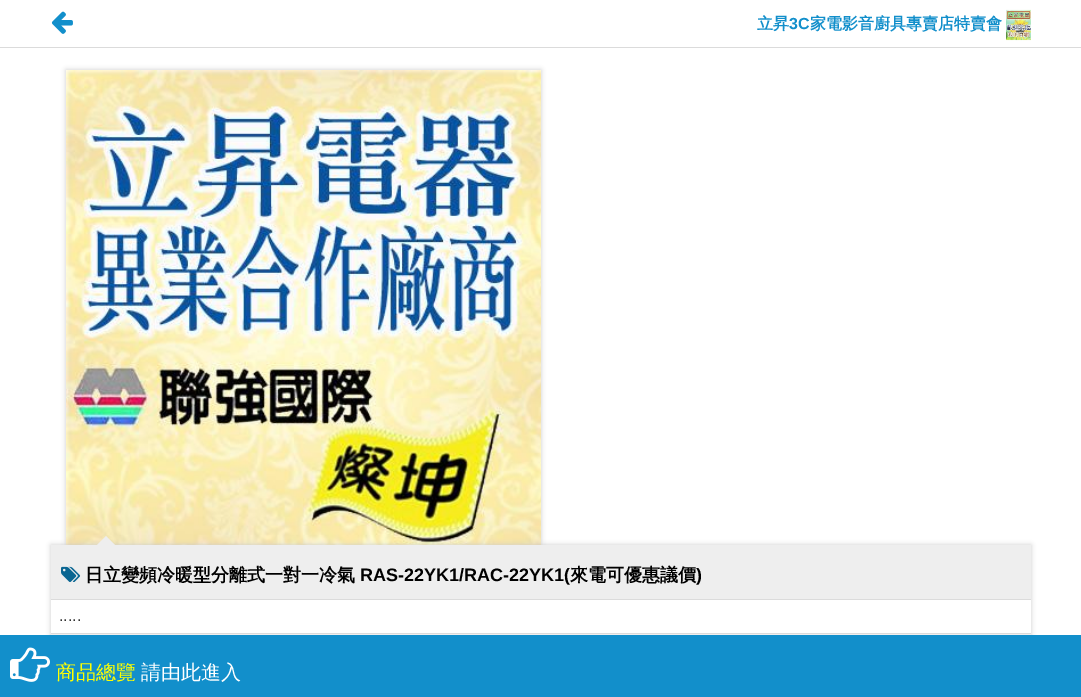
%!PS-Adobe-3.0
%%BoundingBox: 0 0 1081 697
%%LanguageLevel: 3
%%Pages: 1
%%EndComments
%%BeginProlog
/m { moveto } bind def
/l { lineto } bind def
/h { closepath } bind def
/f { fill } bind def
/q { gsave } bind def
/Q { grestore } bind def
/fn { [ exch dup neg 0 0 3 -1 roll 0 0 ] selectfont } def
/tx { moveto show } def
/bx { rectfill } def
/al { dup .setfillconstantalpha .setstrokeconstantalpha } def
/rr { 5 dict begin { /r /h /w /y /x } { exch def } forall
  x r add y moveto x w add y 2 copy h add r arct x w add y h add x 1 index r arct
  x y h add x y r arct x y 2 copy exch w add exch r arct closepath end } def
/sh { 12 dict begin { /a /b /q /h /w /y /x } { exch def } forall gsave /was 0 def
  9 -2 -9 { dup b mul 4 div /e exch def 1 sub .425 mul 2.718 exch exp 1 add a .99 .min exch div /now exch def
    1 1 now sub 1 was sub div sub al /was now def
    w h .min e 2 mul add 0 gt { x e sub y e sub w e 2 mul add h e 2 mul add
      q e add b .6 mul add w h .min 2 div e add .min 0 .max rr fill } if } for grestore end } def
/im { 5 dict begin { /h /w /y /x /name } { exch def } forall
  gsave x y translate w h scale
  w h 8 [w 0 0 h 0 0] name (r) file false 3 colorimage grestore end } def
%%EndProlog
%%BeginSetup
<< /PageSize [1081 697] /PageUsesTransparency true >> setpagedevice
%%EndSetup
%%Page: 1 1
0 .pushpdf14devicefilter
0 697 translate 1 -1 scale
4 setmiterlimit
1 setgray
0 0 1081 697 bx
0.859 setgray
0 47 1081 1 bx
(image0.raw) 51 11 22 23 im
/WenQuanYiZenHei-Bold 16 fn
0.071 0.561 0.796 setrgbcolor
(立昇) 757 29 tx
/LiberationSans-Bold 16 fn
(3C) 789 29 tx
/WenQuanYiZenHei-Bold 16 fn
(家電影音廚具專賣店特賣會) 810 29 tx
(image1.raw) 1006 9 25 32 im
0.8 setgray
66 70 475 475 0 2.5 1 sh
(image2.raw) 66 70 475 475 im
q
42 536 m 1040 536 l 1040 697 l 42 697 l h 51 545 m 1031 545 l 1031 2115 l 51 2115 l h eoclip newpath
51 545 980 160 0 2.5 1 sh
Q
0.933 setgray
51 545 980 54 bx
0.859 setgray
51 599 980 1 bx
0.933 setgray
116 546 m 96 546 l 106 536 l h f
(image3.raw) 61 566 20 16 im
/WenQuanYiZenHei-Bold 18 fn
0 setgray
(日立變頻冷暖型分離式一對一冷氣) 85 581 tx
/LiberationSans-Bold 18 fn
(RAS-22YK1/RAC-22YK1\() 360 581 tx
/WenQuanYiZenHei-Bold 18 fn
(來電可優惠議價) 570 581 tx
/LiberationSans-Bold 18 fn
(\)) 696 581 tx
0.859 setgray
51 633 980 1 bx
/LiberationSans-Regular 16 fn
0.2 setgray
(.....) 59 621 tx
0.933 setgray
51 634 980 1 bx
0.071 0.561 0.796 setrgbcolor
0 635 1081 62 bx
(image4.raw) 10 647 40 35 im
/WenQuanYiZenHei-Medium 20 fn
1 1 0 setrgbcolor
(商品總覽) 56 679 tx
1 setgray
(請由此進入) 141 679 tx
.poppdf14devicefilter showpage
%%EOF
